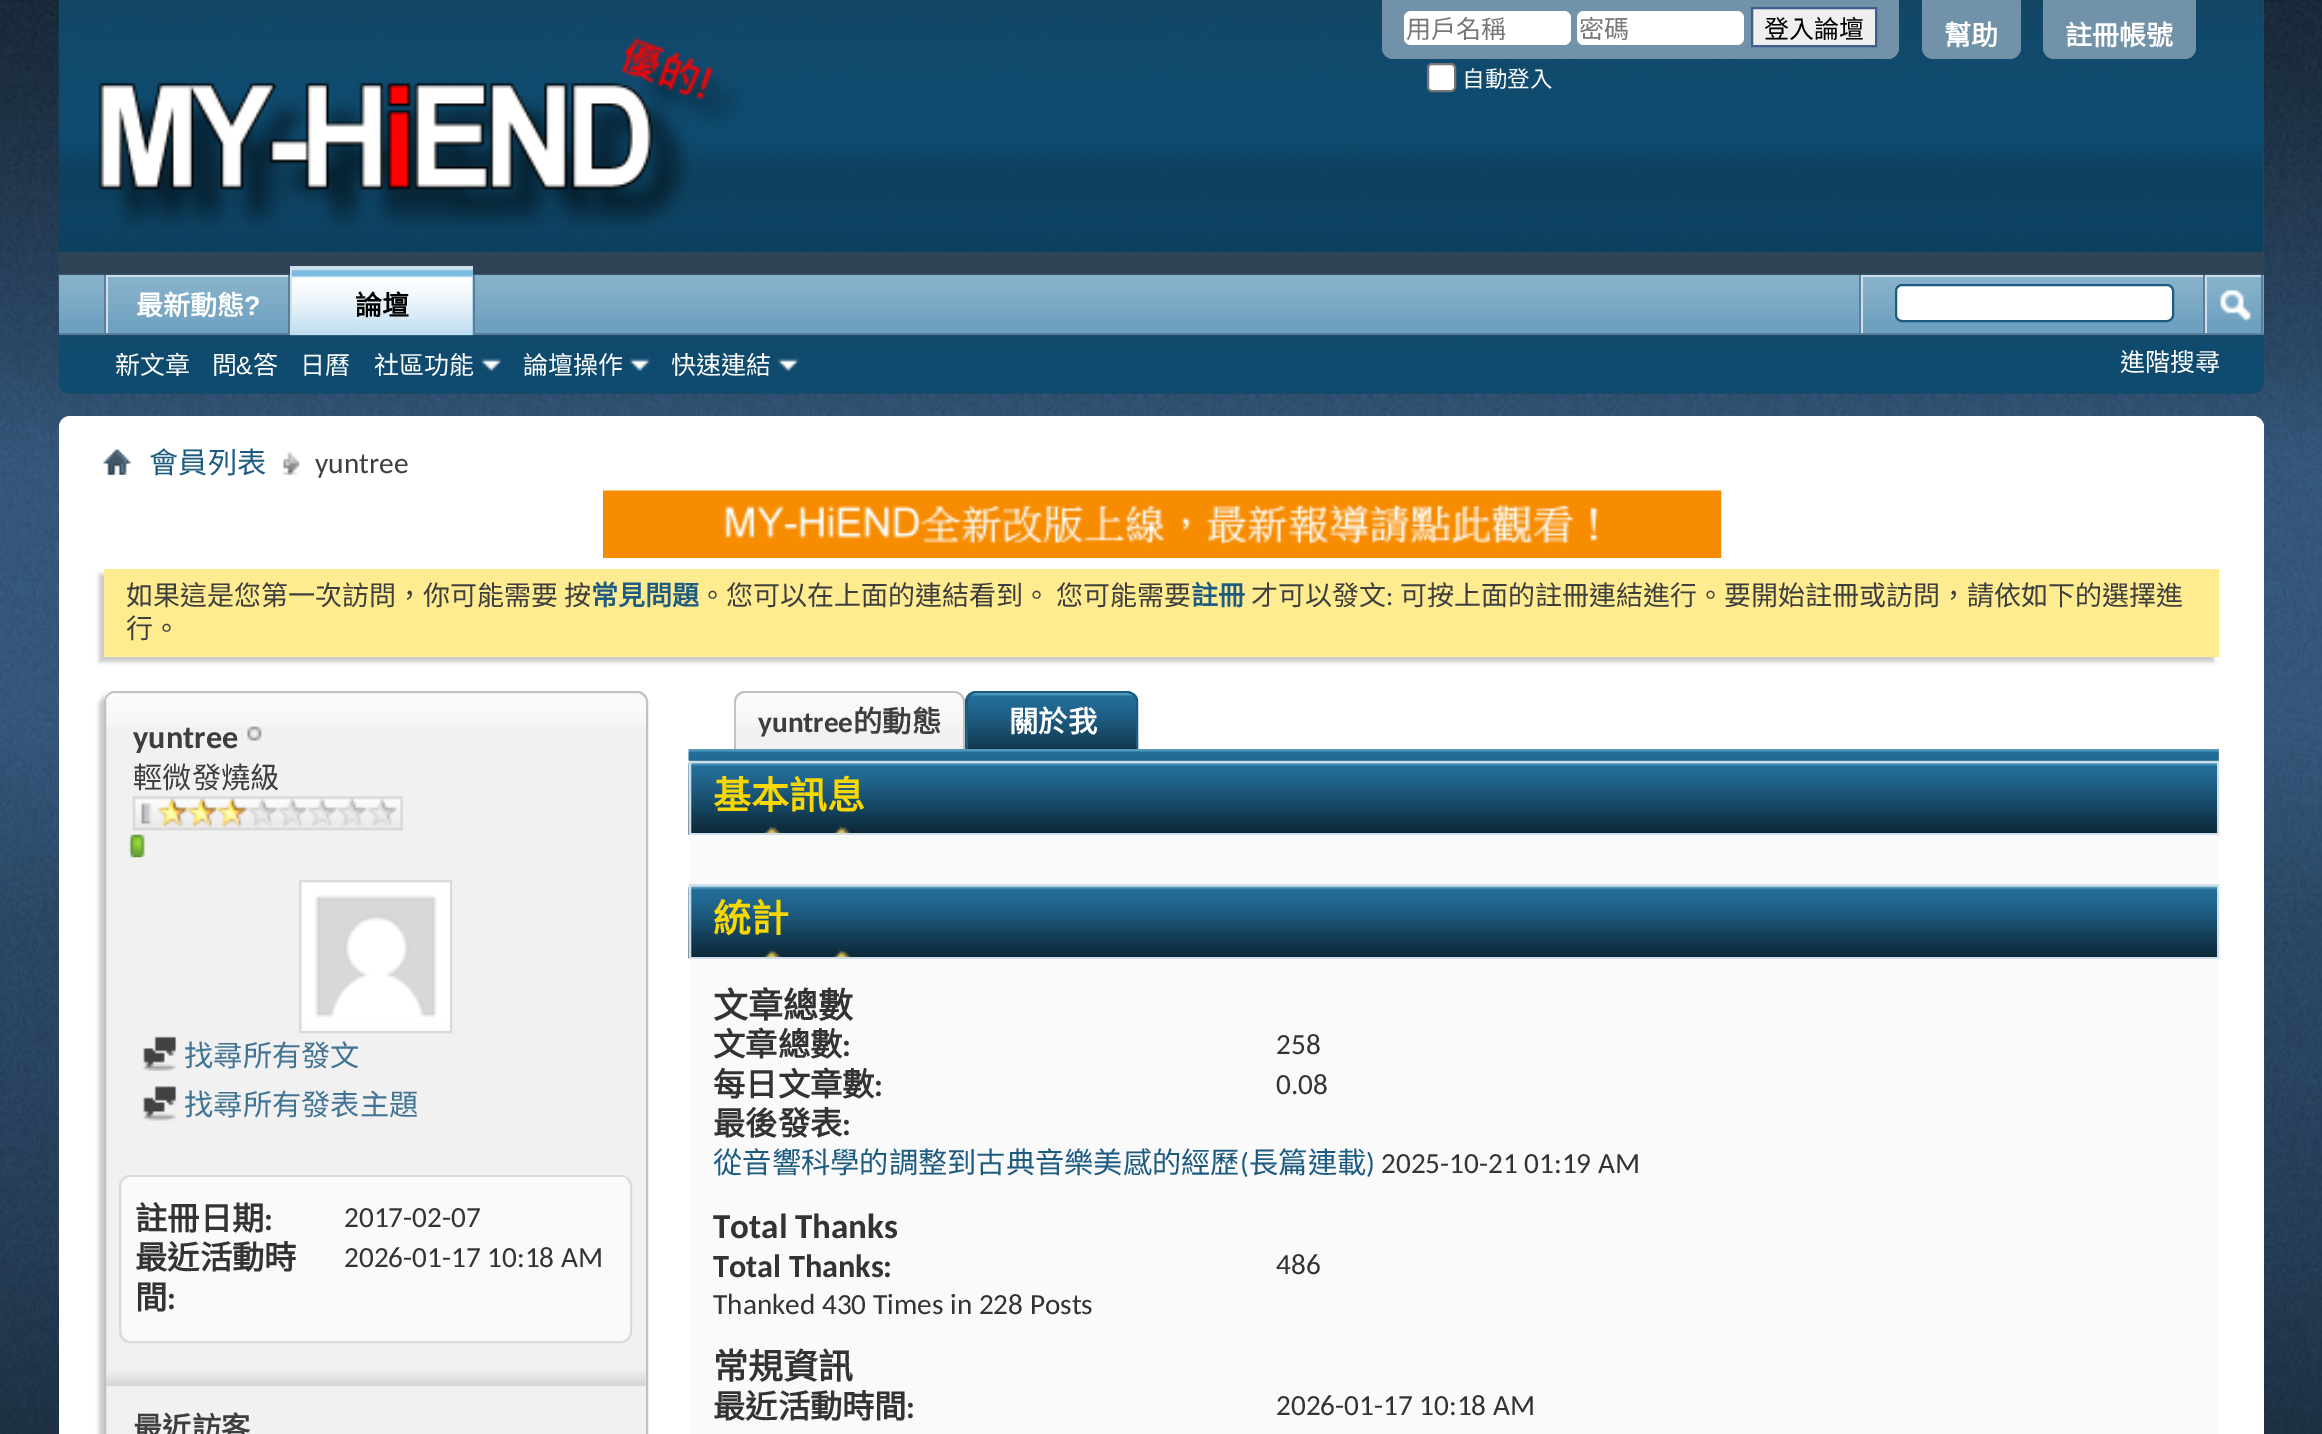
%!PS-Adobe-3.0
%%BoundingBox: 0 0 2322 1434
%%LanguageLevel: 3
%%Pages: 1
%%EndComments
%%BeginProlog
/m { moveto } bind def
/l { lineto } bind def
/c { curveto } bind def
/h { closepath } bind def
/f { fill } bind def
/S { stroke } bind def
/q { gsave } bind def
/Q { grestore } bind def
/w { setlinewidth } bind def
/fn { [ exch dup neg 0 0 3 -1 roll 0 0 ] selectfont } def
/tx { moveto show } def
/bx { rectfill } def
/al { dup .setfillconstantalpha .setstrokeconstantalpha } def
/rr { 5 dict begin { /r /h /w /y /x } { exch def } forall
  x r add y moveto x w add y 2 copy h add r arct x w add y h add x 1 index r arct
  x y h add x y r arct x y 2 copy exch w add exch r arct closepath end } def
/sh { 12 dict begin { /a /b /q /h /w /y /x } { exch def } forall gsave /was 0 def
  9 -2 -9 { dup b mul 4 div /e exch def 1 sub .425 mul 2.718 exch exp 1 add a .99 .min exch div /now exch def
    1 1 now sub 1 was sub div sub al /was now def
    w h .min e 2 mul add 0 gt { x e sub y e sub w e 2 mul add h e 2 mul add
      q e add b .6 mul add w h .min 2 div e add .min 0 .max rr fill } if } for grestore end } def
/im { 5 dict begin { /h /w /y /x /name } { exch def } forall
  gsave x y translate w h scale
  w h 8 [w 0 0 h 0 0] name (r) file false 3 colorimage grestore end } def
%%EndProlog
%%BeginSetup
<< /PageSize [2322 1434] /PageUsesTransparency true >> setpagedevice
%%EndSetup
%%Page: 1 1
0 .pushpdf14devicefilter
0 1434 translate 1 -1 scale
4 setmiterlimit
1 setgray
0 0 2322 1434 bx
(image0.raw) 0 0 2322 1434 im
0.184 0.267 0.337 setrgbcolor
59 0 m 2264 0 l 2264 383 l 2264 389 2259 394 2253 394 c 70 394 l 64 394 59 389 59 383 c h f
(image1.raw) 58 0 2206 252 im
(image2.raw) 98 37 646 190 im
0.443 0.573 0.659 setrgbcolor
1382 0 m 1899 0 l 1899 48 l 1899 54 1894 59 1888 59 c 1393 59 l 1387 59 1382 54 1382 48 c h f
1 setgray
1404 11 167 34 7 rr f
/NotoSansCJKTC-Regular 25 fn
0.467 setgray
(用戶名稱) 1406 38 tx
1 setgray
1577 11 167 34 7 rr f
0.467 setgray
(密碼) 1579 38 tx
0.937 setgray
1752 8 m 1876 8 l 1876 46 l 1752 46 l h q f Q
0.255 0.365 0.553 setrgbcolor
2 w
S
0 setgray
(登入論壇) 1764 38 tx
1 setgray
1428 64 27 27 4 rr q f Q
0.463 setgray
S
/NotoSansCJKTC-Regular 22.5 fn
1 setgray
(自動登入) 1462 87 tx
0.443 0.573 0.659 setrgbcolor
1922 0 m 2021 0 l 2021 48 l 2021 54 2016 59 2010 59 c 1933 59 l 1927 59 1922 54 1922 48 c h f
/NotoSansCJKTC-Bold 27 fn
1 setgray
(幫助) 1944 45 tx
0.443 0.573 0.659 setrgbcolor
2043 0 m 2196 0 l 2196 48 l 2196 54 2191 59 2185 59 c 2054 59 l 2048 59 2043 54 2043 48 c h f
1 setgray
(註冊帳號) 2065 45 tx
0.184 0.267 0.337 setrgbcolor
59 275 m 2264 275 l 2264 383 l 2264 389 2259 394 2253 394 c 70 394 l 64 394 59 389 59 383 c h f
(image3.raw) 58 274 2206 120 im
0.431 0.631 0.753 setrgbcolor
59 275 2205 58 bx
(image4.raw) 58 274 2206 45 im
0.353 0.498 0.592 setrgbcolor
288 275 2 60 bx
104 275 2 60 bx
0.431 0.631 0.753 setrgbcolor
108 277 180 42 bx
(image5.raw) 105 277 183 44 im
0.808 0.875 0.922 setrgbcolor
106 275 182 2 bx
106 275 2 60 bx
1 setgray
(最新動態) 136 315 tx
/LiberationSans-Bold 27 fn
(?) 244 315 tx
0.353 0.498 0.592 setrgbcolor
473 275 2 58 bx
59 333 2205 2 bx
0.494 0.733 0.878 setrgbcolor
292 268 181 67 bx
(image6.raw) 290 268 183 68 im
0.808 0.875 0.922 setrgbcolor
290 266 183 2 bx
290 266 2 69 bx
/NotoSansCJKTC-Bold 27 fn
0 setgray
(論壇) 355 315 tx
/NotoSansCJKTC-Regular 25 fn
1 setgray
(新文章) 115 374 tx
(問) 212 374 tx
/LiberationSans-Regular 25 fn
(&) 236 374 tx
/NotoSansCJKTC-Regular 25 fn
(答) 253 374 tx
(日曆) 300 374 tx
(社區功能) 374 374 tx
(image7.raw) 481 358 21 13 im
(論壇操作) 523 374 tx
(image8.raw) 629 358 22 13 im
(快速連結) 671 374 tx
(image9.raw) 778 358 21 13 im
0.353 0.498 0.592 setrgbcolor
1859 275 2 58 bx
0.808 0.875 0.922 setrgbcolor
1861 275 342 2 bx
1861 275 2 58 bx
1 setgray
1896 285 277 36 6 rr q f Q
0.114 0.357 0.502 setrgbcolor
S
0.353 0.498 0.592 setrgbcolor
2261 275 2 58 bx
2203 275 2 58 bx
0.808 0.875 0.922 setrgbcolor
2205 275 56 2 bx
2205 275 2 58 bx
(image10.raw) 2220 289 31 33 im
1 setgray
(進階搜尋) 2120 371 tx
59 416 2205 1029 11 rr f
(image11.raw) 103 449 28 26 im
(image12.raw) 283 451 17 24 im
/NotoSansCJKTC-Regular 29.25 fn
0.114 0.357 0.502 setrgbcolor
(會員列表) 149 473 tx
/Carlito-Regular 29.25 fn
0.243 setgray
(yuntree) 315 473 tx
(image13.raw) 603 490 1119 68 im
0.784 setgray
99 574 2115 88 0 2 1 sh
1 0.922 0.565 setrgbcolor
104 569 2115 88 bx
/NotoSansCJKTC-Regular 27 fn
0.243 setgray
(如果這是您第一次訪問，你可能需要 按) 126 605 tx
/NotoSansCJKTC-Bold 27 fn
0.114 0.357 0.502 setrgbcolor
(常見問題) 591 605 tx
/NotoSansCJKTC-Regular 27 fn
0.243 setgray
(。您可以在上面的連結看到。 您可能需要) 699 605 tx
/NotoSansCJKTC-Bold 27 fn
0.114 0.357 0.502 setrgbcolor
(註冊) 1191 605 tx
/NotoSansCJKTC-Regular 27 fn
0.243 setgray
(才可以發文) 1251 605 tx
/Carlito-Regular 27 fn
(:) 1386 605 tx
/NotoSansCJKTC-Regular 27 fn
(可按上面的註冊連結進行。要開始註冊或訪問，請依如下的選擇進) 1400 605 tx
(行。) 126 638 tx
0.784 setgray
99 695 545 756 11 2 1 sh
0.945 setgray
104 691 544 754 11 rr f
(image14.raw) 104 693 544 34 im
0.757 setgray
105 692 542 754 10 rr S
(image15.raw) 106 693 8 9 im
/Carlito-Bold 32.25 fn
0.243 setgray
(yuntree) 133 748 tx
(image16.raw) 247 726 15 15 im
/NotoSansCJKTC-Regular 29.25 fn
(輕微發燒級) 133 788 tx
(image17.raw) 132 796 271 35 im
(image18.raw) 128 834 17 24 im
1 setgray
7 w
305.5 885.5 141 142 rectstroke
(image19.raw) 309 889 134 135 im
0.855 setgray
2 w
300 881 151 151 rectstroke
(image20.raw) 142 1036 35 35 im
0.255 0.451 0.58 setrgbcolor
(找尋所有發文) 184 1066 tx
(image21.raw) 142 1086 35 35 im
(找尋所有發表主題) 184 1115 tx
0.855 setgray
120 1176 511 166 10 rr S
0.98 setgray
122 1177 508 164 11 rr f
128 1177 498 2 bx
/NotoSansCJKTC-Bold 32.25 fn
0.2 setgray
(註冊日期) 135 1230 tx
/Carlito-Bold 32.25 fn
(:) 264 1230 tx
/Carlito-Regular 29.25 fn
(2017-02-07) 344 1227 tx
/NotoSansCJKTC-Bold 32.25 fn
(最近活動時) 135 1269 tx
(間) 135 1309 tx
/Carlito-Bold 32.25 fn
(:) 167 1309 tx
/Carlito-Regular 29.25 fn
(2026-01-17 10:18 AM) 344 1267 tx
(image22.raw) 105 1371 541 15 im
/NotoSansCJKTC-Bold 29.25 fn
0.243 setgray
(最近訪客) 133 1438 tx
0.945 setgray
745 693 m 954 693 l 959 693 963 697 963 702 c 963 749 l 736 749 l 736 702 l 736 697 740 693 745 693 c h f
(image23.raw) 736 693 227 34 im
0.757 setgray
745 691 m 954 691 l 960 691 965 696 965 702 c 965 749 l 734 749 l 734 702 l 734 696 739 691 745 691 c h 745 693 m 954 693 l 959 693 963 697 963 702 c 963 749 l 736 749 l 736 702 l 736 697 740 693 745 693 c h eofill
/Carlito-Bold 29.25 fn
0.243 setgray
(yuntree) 758 732 tx
/NotoSansCJKTC-Bold 29.25 fn
(的動態) 853 732 tx
(image24.raw) 965 693 174 56 im
0.114 0.357 0.502 setrgbcolor
976 691 m 1127 691 l 1133 691 1138 696 1138 702 c 1138 749 l 965 749 l 965 702 l 965 696 970 691 976 691 c h 976 693 m 1127 693 l 1132 693 1136 697 1136 702 c 1136 749 l 968 749 l 968 702 l 968 697 972 693 976 693 c h eofill
1 setgray
(關於我) 1009 732 tx
0.443 0.573 0.659 setrgbcolor
689 749 1530 12 bx
(image25.raw) 688 749 1531 12 im
(image26.raw) 688 762 1529 73 im
0.808 0.875 0.922 setrgbcolor
690 762 1528 72 rectstroke
/NotoSansCJKTC-Bold 38 fn
0.973 0.847 0 setrgbcolor
(基本訊息) 713 809 tx
0.98 setgray
689 835 1530 49 bx
0.949 0.965 0.973 setrgbcolor
691 886 1526 1 bx
(image27.raw) 688 886 1529 73 im
0.808 0.875 0.922 setrgbcolor
690 885 1528 73 rectstroke
0.973 0.847 0 setrgbcolor
(統計) 713 932 tx
0.98 setgray
689 959 1530 475 bx
/NotoSansCJKTC-Bold 35 fn
0.2 setgray
(文章總數) 713 1018 tx
/NotoSansCJKTC-Bold 32.25 fn
(文章總數) 713 1056 tx
/Carlito-Bold 32.25 fn
(:) 842 1056 tx
/Carlito-Regular 29.25 fn
(258) 1276 1054 tx
/NotoSansCJKTC-Bold 32.25 fn
(每日文章數) 713 1096 tx
/Carlito-Bold 32.25 fn
(:) 874 1096 tx
/Carlito-Regular 29.25 fn
(0.08) 1276 1094 tx
/NotoSansCJKTC-Bold 32.25 fn
(最後發表) 713 1135 tx
/Carlito-Bold 32.25 fn
(:) 842 1135 tx
/NotoSansCJKTC-Regular 29.25 fn
0.114 0.357 0.502 setrgbcolor
(從音響科學的調整到古典音樂美感的經歷) 713 1173 tx
/Carlito-Regular 29.25 fn
(\() 1240 1173 tx
/NotoSansCJKTC-Regular 29.25 fn
(長篇連載) 1249 1173 tx
/Carlito-Regular 29.25 fn
(\)) 1366 1173 tx
0.2 setgray
(2025-10-21 01:19 AM) 1381 1173 tx
/Carlito-Bold 35 fn
(Total Thanks) 713 1238 tx
/Carlito-Bold 32.25 fn
(Total Thanks:) 713 1277 tx
/Carlito-Regular 29.25 fn
(486) 1276 1274 tx
(Thanked 430 Times in 228 Posts) 713 1314 tx
/NotoSansCJKTC-Bold 35 fn
(常規資訊) 713 1379 tx
/NotoSansCJKTC-Bold 32.25 fn
(最近活動時間) 713 1418 tx
/Carlito-Bold 32.25 fn
(:) 906 1418 tx
/Carlito-Regular 29.25 fn
(2026-01-17 10:18 AM) 1276 1415 tx
.poppdf14devicefilter showpage
%%EOF
